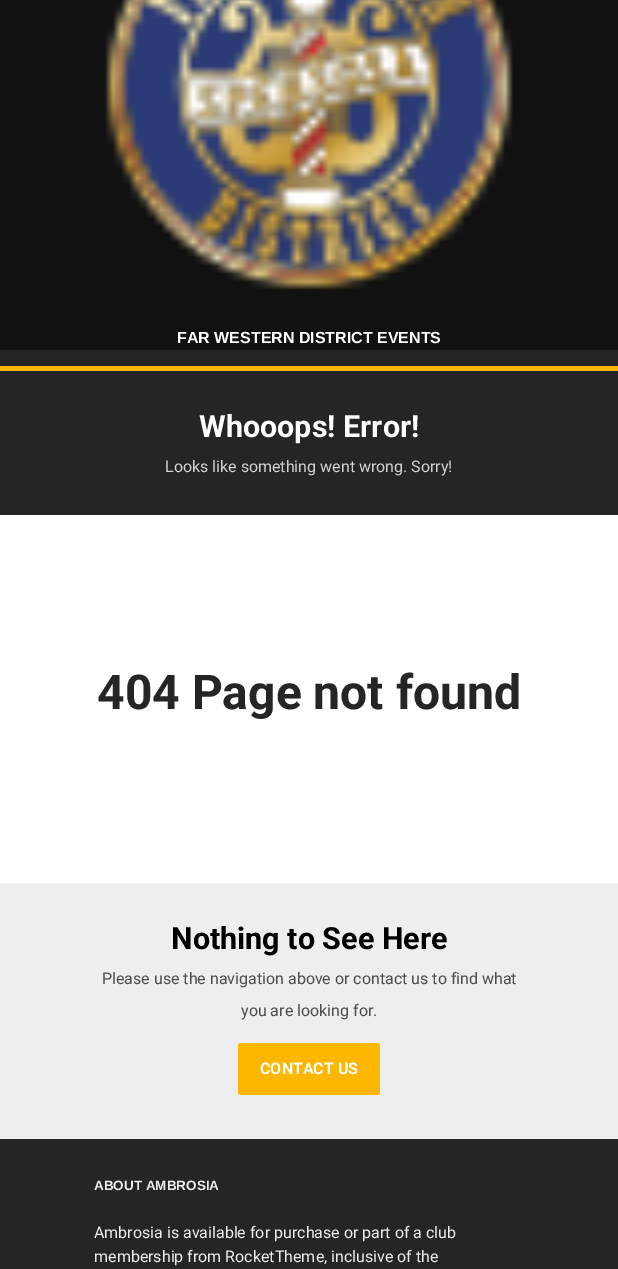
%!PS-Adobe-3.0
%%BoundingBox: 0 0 618 1269
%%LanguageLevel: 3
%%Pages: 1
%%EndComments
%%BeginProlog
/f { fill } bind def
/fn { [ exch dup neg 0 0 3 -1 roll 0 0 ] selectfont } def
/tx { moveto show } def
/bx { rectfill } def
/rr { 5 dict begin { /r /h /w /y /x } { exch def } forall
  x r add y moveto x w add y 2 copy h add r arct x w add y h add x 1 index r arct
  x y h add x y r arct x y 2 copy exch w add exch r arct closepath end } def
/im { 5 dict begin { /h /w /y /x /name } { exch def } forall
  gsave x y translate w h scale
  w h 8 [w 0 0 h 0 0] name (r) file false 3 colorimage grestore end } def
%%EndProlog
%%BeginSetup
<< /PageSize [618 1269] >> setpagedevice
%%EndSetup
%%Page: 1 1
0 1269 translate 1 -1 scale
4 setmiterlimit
1 setgray
0 0 618 1269 bx
0.067 setgray
0 0 618 350 bx
(image0.raw) 105 0 408 290 im
/LiberationSans-Bold 16 fn
1 setgray
(FAR WESTERN DISTRICT EVENTS) 177 343 tx
0.145 setgray
0 350 618 16 bx
0 371 618 144 bx
0.992 0.718 0.004 setrgbcolor
0 366 618 5 bx
/Roboto-Bold 30.5 fn
1 setgray
(Whooops! Error!) 199 437 tx
/Roboto-Regular 16 fn
0.827 setgray
(Looks like something went wrong. Sorry!) 165 472 tx
/Roboto-Bold 48 fn
0.145 setgray
(404 Page not found) 97 709 tx
0.933 setgray
0 883 618 256 bx
/Roboto-Bold 30.5 fn
0 setgray
(Nothing to See Here) 171 949 tx
/Roboto-Regular 16 fn
0.302 setgray
(Please use the navigation above or contact us to find what) 102 984 tx
(you are looking for.) 241 1016 tx
0.992 0.718 0.004 setrgbcolor
238 1043 142 52 3 rr f
/Roboto-Bold 16 fn
1 setgray
(CONTACT US) 260 1074 tx
0.145 setgray
0 1139 618 130 bx
/LiberationSans-Bold 13.5 fn
0.933 setgray
(ABOUT AMBROSIA) 94 1190 tx
/Roboto-Regular 16 fn
(Ambrosia is available for purchase or part of a club) 94 1238 tx
(membership from RocketTheme, inclusive of the) 94 1262 tx
showpage
%%EOF
